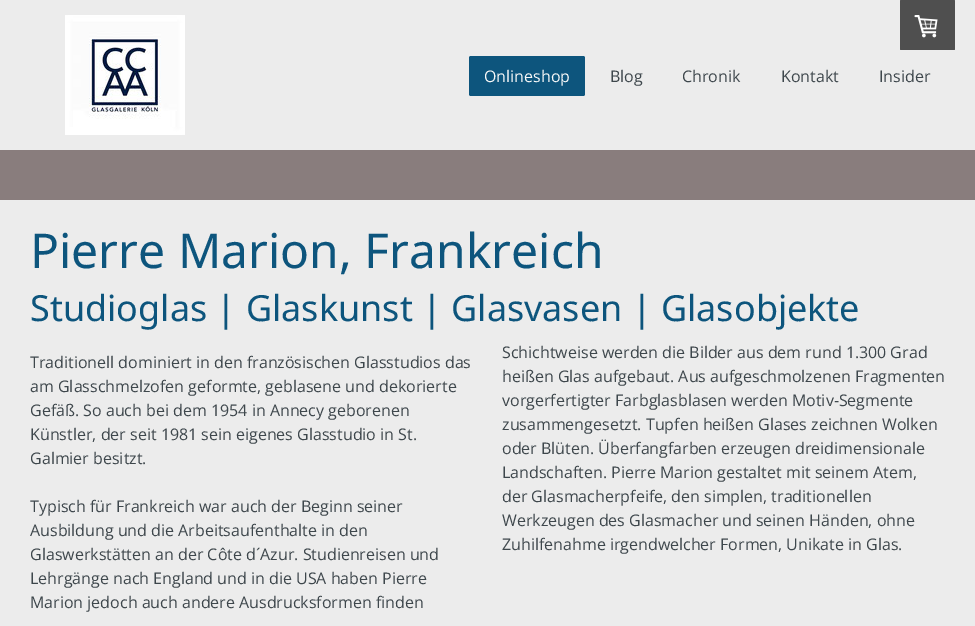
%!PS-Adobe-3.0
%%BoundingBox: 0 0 975 626
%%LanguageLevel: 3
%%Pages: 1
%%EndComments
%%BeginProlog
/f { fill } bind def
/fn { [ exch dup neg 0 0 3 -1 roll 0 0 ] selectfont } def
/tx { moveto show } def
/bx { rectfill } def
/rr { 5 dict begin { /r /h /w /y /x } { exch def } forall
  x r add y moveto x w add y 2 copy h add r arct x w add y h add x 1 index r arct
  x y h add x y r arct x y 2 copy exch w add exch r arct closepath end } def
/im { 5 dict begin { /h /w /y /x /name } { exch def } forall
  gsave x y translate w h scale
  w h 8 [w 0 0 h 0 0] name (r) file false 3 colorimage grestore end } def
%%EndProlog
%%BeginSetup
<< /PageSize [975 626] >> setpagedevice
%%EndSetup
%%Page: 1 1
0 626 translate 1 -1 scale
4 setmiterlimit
0.537 0.49 0.49 setrgbcolor
0 0 975 626 bx
0.925 setgray
0 0 975 150 bx
0.31 setgray
900 0 55 50 1 rr f
(image0.raw) 914 15 24 23 im
(image1.raw) 65 15 120 120 im
0.051 0.333 0.49 setrgbcolor
469 56 116 40 2 rr f
/OpenSans-Regular 16 fn
0.969 0.973 0.973 setrgbcolor
(Onlineshop) 484 82 tx
0.243 0.278 0.298 setrgbcolor
(Blog) 610 82 tx
(Chronik) 682 82 tx
(Kontakt) 781 82 tx
(Insider) 879 82 tx
0.925 setgray
0 200 975 426 bx
/NotoSans-Regular 48 fn
0.051 0.333 0.49 setrgbcolor
(Pierre Marion, Frankreich) 30 268 tx
/NotoSans-Regular 36 fn
(Studioglas | Glaskunst | Glasvasen | Glasobjekte) 30 321 tx
/OpenSans-Regular 16 fn
0.243 0.278 0.298 setrgbcolor
(Traditionell dominiert in den französischen Glasstudios das) 30 368 tx
(am Glasschmelzofen geformte, geblasene und dekorierte) 30 392 tx
(Gefäß. So auch bei dem 1954 in Annecy geborenen) 30 416 tx
(Künstler, der seit 1981 sein eigenes Glasstudio in St.) 30 440 tx
(Galmier besitzt.) 30 464 tx
(Typisch für Frankreich war auch der Beginn seiner) 30 512 tx
(Ausbildung und die Arbeitsaufenthalte in den) 30 536 tx
(Glaswerkstätten an der Côte d´Azur. Studienreisen und) 30 560 tx
(Lehrgänge nach England und in die USA haben Pierre) 30 584 tx
(Marion jedoch auch andere Ausdrucksformen finden) 30 608 tx
(Schichtweise werden die Bilder aus dem rund 1.300 Grad) 502 358 tx
(heißen Glas aufgebaut. Aus aufgeschmolzenen Fragmenten) 502 382 tx
(vorgerfertigter Farbglasblasen werden Motiv-Segmente) 502 406 tx
(zusammengesetzt. Tupfen heißen Glases zeichnen Wolken) 502 430 tx
(oder Blüten. Überfangfarben erzeugen dreidimensionale) 502 454 tx
(Landschaften. Pierre Marion gestaltet mit seinem Atem,) 502 478 tx
(der Glasmacherpfeife, den simplen, traditionellen) 502 502 tx
(Werkzeugen des Glasmacher und seinen Händen, ohne) 502 526 tx
(Zuhilfenahme irgendwelcher Formen, Unikate in Glas.) 502 550 tx
showpage
%%EOF
